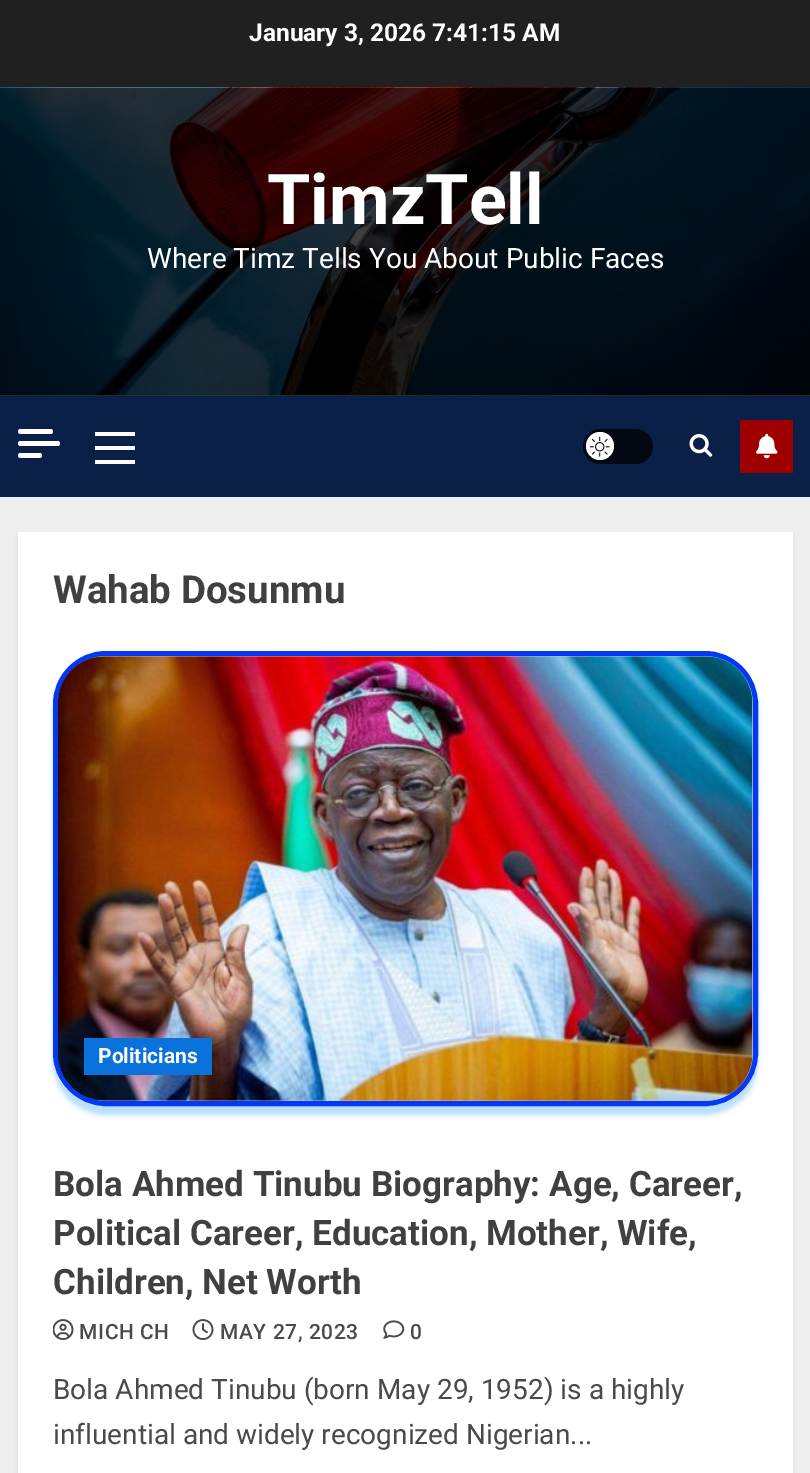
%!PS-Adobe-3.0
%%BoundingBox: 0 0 810 1473
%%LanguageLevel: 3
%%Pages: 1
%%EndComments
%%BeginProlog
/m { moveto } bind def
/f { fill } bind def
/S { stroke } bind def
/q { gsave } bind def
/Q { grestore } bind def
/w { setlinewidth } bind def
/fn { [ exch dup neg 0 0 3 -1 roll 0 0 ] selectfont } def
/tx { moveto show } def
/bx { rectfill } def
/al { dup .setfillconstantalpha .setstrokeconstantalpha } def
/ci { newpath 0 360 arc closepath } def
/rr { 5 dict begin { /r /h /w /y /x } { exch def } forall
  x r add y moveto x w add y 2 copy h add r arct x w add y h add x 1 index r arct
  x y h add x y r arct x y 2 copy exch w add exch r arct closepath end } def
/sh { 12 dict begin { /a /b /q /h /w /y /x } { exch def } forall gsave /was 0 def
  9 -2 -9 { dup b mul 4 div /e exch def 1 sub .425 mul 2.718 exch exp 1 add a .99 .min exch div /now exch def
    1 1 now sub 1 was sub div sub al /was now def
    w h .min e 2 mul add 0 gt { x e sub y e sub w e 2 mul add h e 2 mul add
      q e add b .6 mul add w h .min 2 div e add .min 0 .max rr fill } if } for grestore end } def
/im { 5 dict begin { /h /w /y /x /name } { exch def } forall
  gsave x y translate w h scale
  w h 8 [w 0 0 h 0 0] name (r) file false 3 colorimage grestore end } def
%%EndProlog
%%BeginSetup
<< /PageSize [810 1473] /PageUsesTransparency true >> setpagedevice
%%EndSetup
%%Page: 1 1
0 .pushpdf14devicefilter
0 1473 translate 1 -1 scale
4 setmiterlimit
0.933 setgray
0 0 810 1473 bx
0.125 setgray
0 0 810 88 bx
/Roboto-Bold 24.5 fn
1 setgray
(January 3, 2026 7:41:15 AM) 249 41 tx
0.251 setgray
0 395 810 1 bx
(image0.raw) 0 87 810 309 im
/Roboto-Bold 70 fn
1 setgray
(TimzTell) 267 224 tx
/Roboto-Regular 28 fn
(Where Timz Tells You About Public Faces) 147 268 tx
0.043 0.125 0.282 setrgbcolor
0 396 810 101 bx
1 setgray
18 429 35 5 2.5 rr f
18 441 42 5 2.5 rr f
18 453 24 5 2.5 rr f
95 446 40 4 bx
95 432 40 4 bx
95 460 40 4 bx
0.012 0.031 0.071 setrgbcolor
583 429 70 35 17.5 rr f
1 setgray
600 446 14 ci f
(image1.raw) 590 436 20 21 im
(image2.raw) 689 434 24 23 im
0.62 0 0 setrgbcolor
740 420 53 53 bx
(image3.raw) 756 433 22 26 im
0 setgray
18 536 775 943 0 2 0.08 sh
1 setgray
18 532 775 941 bx
/Roboto-Bold 38.5 fn
0.251 setgray
(Wahab Dosunmu) 53 603 tx
0.055 0.573 0.961 setrgbcolor
53 660 705 455 53 2.5 0.3 sh
0.8 setgray
55.5 653.5 700 450 50.5 rr q f Q
0.016 0.22 0.957 setrgbcolor
5 w
S
(image4.raw) 57 656 696 445 im
0.039 0.447 0.859 setrgbcolor
84 1038 128 37 bx
/Roboto-Bold 21 fn
1 setgray
(Politicians) 98 1063 tx
/Roboto-Bold 35 fn
0.251 setgray
(Bola Ahmed Tinubu Biography: Age, Career,) 53 1196 tx
(Political Career, Education, Mother, Wife,) 53 1245 tx
(Children, Net Worth) 53 1294 tx
(image5.raw) 53 1319 21 21 im
/Roboto-Medium 21 fn
0.29 setgray
79 1339 m 0.6 0 (MICH CH) ashow
(image6.raw) 192 1319 22 21 im
220 1339 m 0.6 0 (MAY 27, 2023) ashow
(image7.raw) 383 1320 22 19 im
410 1339 m 0.6 0 (0) ashow
/Roboto-Regular 28 fn
(Bola Ahmed Tinubu \(born May 29, 1952\) is a highly) 53 1399 tx
(influential and widely recognized Nigerian...) 53 1444 tx
.poppdf14devicefilter showpage
%%EOF
